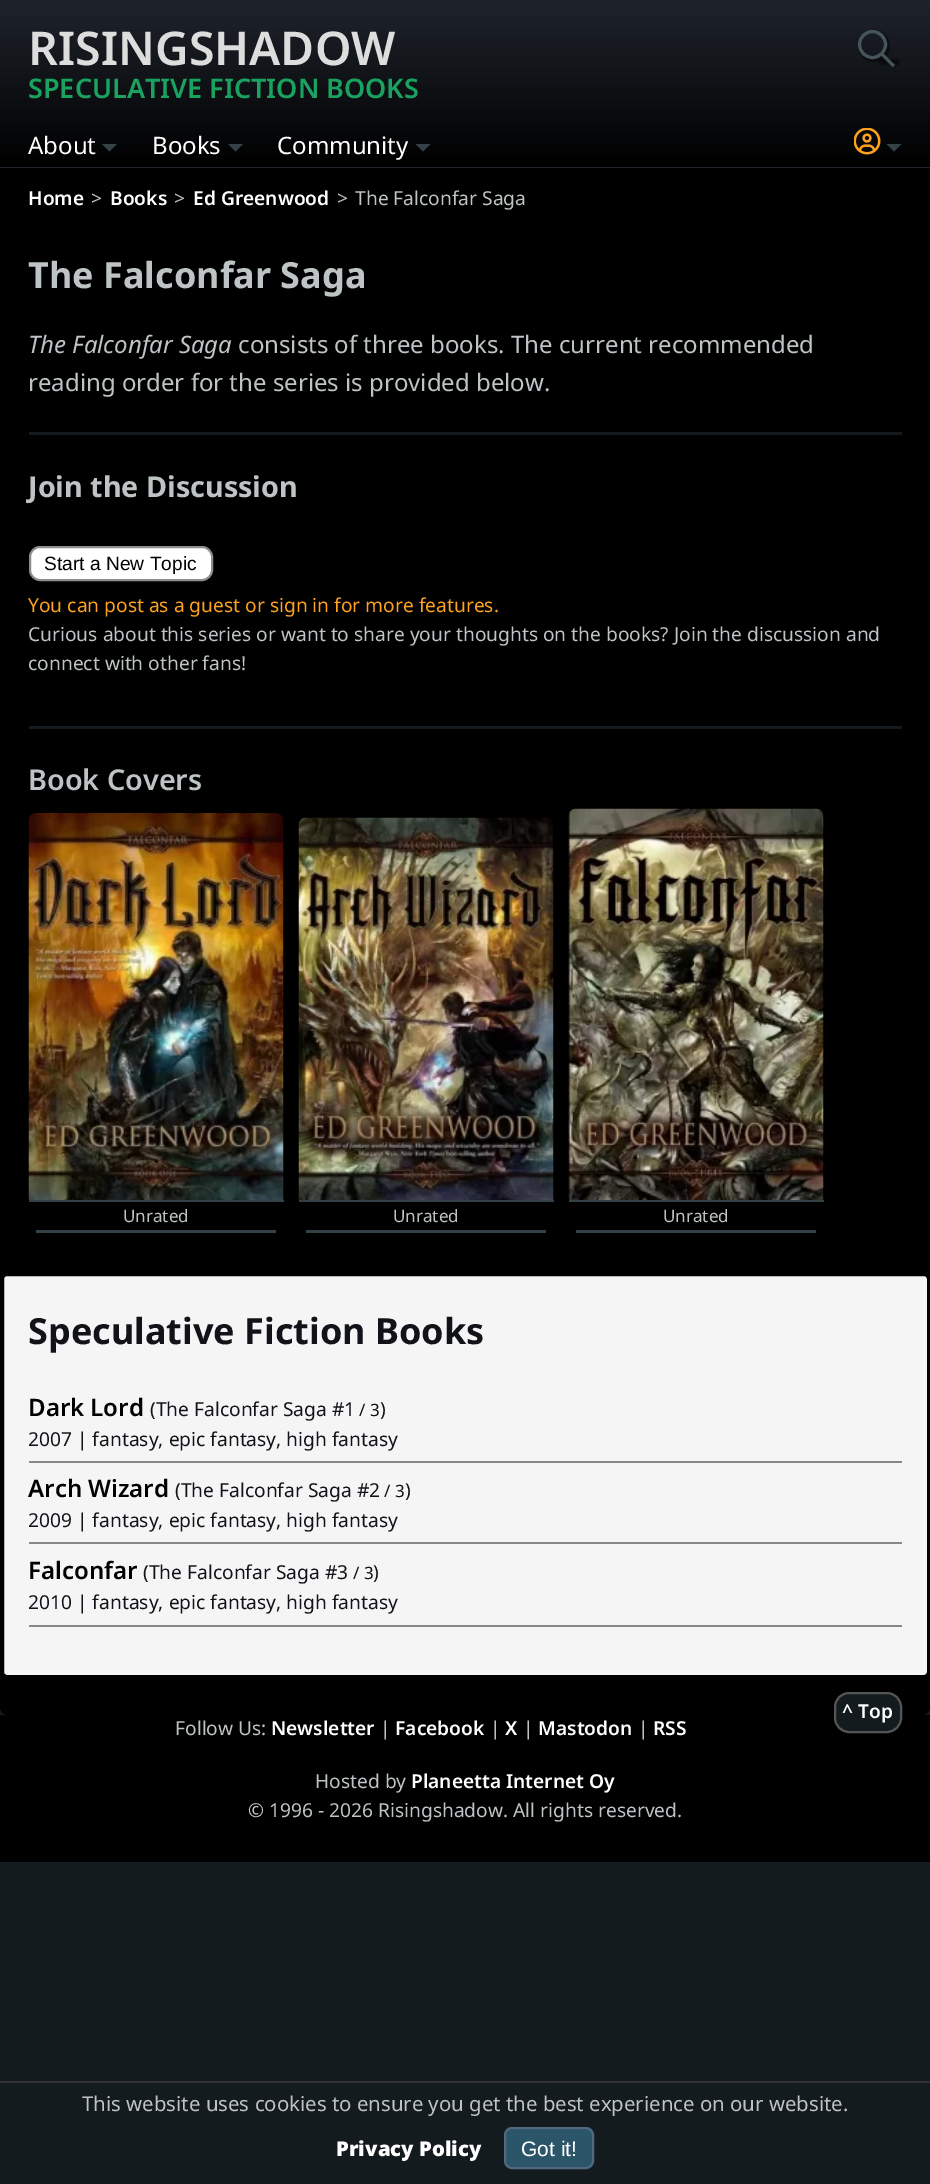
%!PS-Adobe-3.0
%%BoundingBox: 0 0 930 2184
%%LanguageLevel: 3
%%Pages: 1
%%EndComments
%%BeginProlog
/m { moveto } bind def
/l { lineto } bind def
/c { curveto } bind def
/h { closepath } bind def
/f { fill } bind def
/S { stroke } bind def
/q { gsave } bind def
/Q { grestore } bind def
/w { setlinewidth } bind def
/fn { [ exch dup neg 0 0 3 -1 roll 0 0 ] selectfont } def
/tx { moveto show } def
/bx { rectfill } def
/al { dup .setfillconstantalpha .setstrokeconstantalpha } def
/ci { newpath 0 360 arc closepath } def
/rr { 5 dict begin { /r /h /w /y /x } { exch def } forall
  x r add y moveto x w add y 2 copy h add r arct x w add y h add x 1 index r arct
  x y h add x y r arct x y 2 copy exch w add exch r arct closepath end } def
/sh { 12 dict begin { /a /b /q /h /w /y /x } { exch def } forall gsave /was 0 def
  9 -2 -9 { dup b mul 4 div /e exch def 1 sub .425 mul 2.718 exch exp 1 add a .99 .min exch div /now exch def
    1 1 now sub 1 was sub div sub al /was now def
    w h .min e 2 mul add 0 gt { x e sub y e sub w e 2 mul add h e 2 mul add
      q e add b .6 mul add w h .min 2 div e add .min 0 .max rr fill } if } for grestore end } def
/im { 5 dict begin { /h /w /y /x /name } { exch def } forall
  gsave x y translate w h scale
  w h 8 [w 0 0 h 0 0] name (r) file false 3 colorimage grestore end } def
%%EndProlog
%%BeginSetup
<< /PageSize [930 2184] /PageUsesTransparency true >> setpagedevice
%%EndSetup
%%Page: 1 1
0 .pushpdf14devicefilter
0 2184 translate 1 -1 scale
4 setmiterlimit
0.078 0.106 0.118 setrgbcolor
0 0 930 2184 bx
q 0 0 m 930 0 l 930 167 l 0 167 l h clip newpath
<< /ShadingType 2 /ColorSpace /DeviceRGB /Coords [465 0 465 167] /Extend [true true] /Function << /FunctionType 2 /Domain [0 1] /C0 [0.122 0.141 0.173] /C1 [0 0 0] /N 1 >> >> shfill Q
q 0 167 m 930 167 l 930 168 l 0 168 l h clip newpath
<< /ShadingType 2 /ColorSpace /DeviceRGB /Coords [465 166 465 333] /Extend [true true] /Function << /FunctionType 2 /Domain [0 1] /C0 [0.122 0.141 0.173] /C1 [0 0 0] /N 1 >> >> shfill Q
/NotoSans-SemiBold 46.5 fn
0.867 setgray
(RISINGSHADOW) 28 65 tx
/NotoSans-SemiBold 27 fn
0.102 0.635 0.376 setrgbcolor
(SPECULATIVE FICTION BOOKS) 28 98 tx
q
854 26 m 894 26 l 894 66 l 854 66 l h 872.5 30 m 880.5 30 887 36.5 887 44.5 c 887 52.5 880.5 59 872.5 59 c 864.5 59 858 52.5 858 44.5 c 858 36.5 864.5 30 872.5 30 c h eoclip newpath
0 setgray
858 30 32 32 16 1 0.5 sh
Q
0.271 0.333 0.361 setrgbcolor
3 w
872.5 44.5 13 ci S
0 setgray
879 59 20 6 0 1 0.5 sh
0.271 0.333 0.361 setrgbcolor
883 53 m 895 65 l 892.5 67 l 881 55 l h f
/NotoSans-Regular 24 fn
1 setgray
(About) 28 154 tx
0.204 0.259 0.282 setrgbcolor
102 144 m 117 144 l 109.5 151.5 l h f
1 setgray
(Books) 152 154 tx
0.204 0.259 0.282 setrgbcolor
228 144 m 243 144 l 235.5 151.5 l h f
1 setgray
(Community) 277 154 tx
0.204 0.259 0.282 setrgbcolor
415.5 144 m 430.5 144 l 423 151.5 l h f
(image0.raw) 854 128 27 27 im
886.5 144 m 901.5 144 l 894 151.5 l h f
0 setgray
0 168 m 930 168 l 930 1707 l 930 1711.5 926.5 1715 922 1715 c 8 1715 l 3.5 1715 0 1711.5 0 1707 c h f
/NotoSans-SemiBold 19.2 fn
1 setgray
(Home) 28 205 tx
/NotoSans-Regular 19.2 fn
0.745 0.765 0.773 setrgbcolor
(>) 91 205 tx
/NotoSans-SemiBold 19.2 fn
1 setgray
(Books) 110 205 tx
/NotoSans-Regular 19.2 fn
0.745 0.765 0.773 setrgbcolor
(>) 174 205 tx
/NotoSans-SemiBold 19.2 fn
1 setgray
(Ed Greenwood) 193 205 tx
/NotoSans-Regular 19.2 fn
0.745 0.765 0.773 setrgbcolor
(>) 337 205 tx
(The Falconfar Saga) 355 205 tx
/NotoSans-Bold 36 fn
(The Falconfar Saga) 28 288 tx
/NotoSans-Italic 24 fn
(The Falconfar Saga) 28 353 tx
/NotoSans-Regular 24 fn
(consists of three books. The current recommended) 238 353 tx
(reading order for the series is provided below.) 28 391 tx
0.078 0.106 0.118 setrgbcolor
29 432 873 3 bx
/NotoSans-Bold 28.75 fn
0.745 0.765 0.773 setrgbcolor
(Join the Discussion) 28 497 tx
1 setgray
30 547 182 33 10 rr q f Q
0.553 setgray
2 w
S
/LiberationSans-Regular 19.2 fn
0 setgray
(Start a New Topic) 44 570 tx
/NotoSans-Regular 19.2 fn
0.996 0.635 0.125 setrgbcolor
(You can post as a guest or sign in for more features.) 28 612 tx
0.745 0.765 0.773 setrgbcolor
(Curious about this series or want to share your thoughts on the books? Join the discussion and) 28 641 tx
(connect with other fans!) 28 670 tx
0.078 0.106 0.118 setrgbcolor
29 726 873 3 bx
/NotoSans-SemiBold 28.75 fn
0.745 0.765 0.773 setrgbcolor
(Book Covers) 28 790 tx
0.204 0.259 0.282 setrgbcolor
36 1230 240 3 bx
(image1.raw) 28 813 256 387 im
29 1200 255 2 bx
/NotoSans-Regular 17 fn
0.745 0.765 0.773 setrgbcolor
(Unrated) 123 1222 tx
0.204 0.259 0.282 setrgbcolor
306 1230 240 3 bx
(image2.raw) 298 817 256 383 im
299 1200 255 2 bx
0.745 0.765 0.773 setrgbcolor
(Unrated) 393 1222 tx
0.204 0.259 0.282 setrgbcolor
576 1230 240 3 bx
(image3.raw) 568 808 256 392 im
569 1200 255 2 bx
0.745 0.765 0.773 setrgbcolor
(Unrated) 663 1222 tx
0.961 setgray
3 1275 925 401 4 rr q f Q
0 setgray
S
/NotoSans-Bold 36 fn
0.067 0.075 0.094 setrgbcolor
(Speculative Fiction Books) 28 1344 tx
0.533 setgray
29 1461 873 2 bx
/NotoSans-SemiBold 24 fn
0 setgray
(Dark Lord) 28 1416 tx
/NotoSans-Regular 19.2 fn
0.067 0.075 0.094 setrgbcolor
(\(The Falconfar Saga #1) 150 1416 tx
/NotoSans-Regular 17 fn
(/ 3) 359 1416 tx
/NotoSans-Regular 19.2 fn
(\)) 380 1416 tx
(2007 | fantasy, epic fantasy, high fantasy) 28 1446 tx
0.533 setgray
29 1542 873 2 bx
/NotoSans-SemiBold 24 fn
0 setgray
(Arch Wizard) 28 1497 tx
/NotoSans-Regular 19.2 fn
0.067 0.075 0.094 setrgbcolor
(\(The Falconfar Saga #2) 175 1497 tx
/NotoSans-Regular 17 fn
(/ 3) 384 1497 tx
/NotoSans-Regular 19.2 fn
(\)) 405 1497 tx
(2009 | fantasy, epic fantasy, high fantasy) 28 1527 tx
0.533 setgray
29 1625 873 2 bx
/NotoSans-SemiBold 24 fn
0 setgray
(Falconfar) 28 1579 tx
/NotoSans-Regular 19.2 fn
0.067 0.075 0.094 setrgbcolor
(\(The Falconfar Saga #3) 143 1579 tx
/NotoSans-Regular 17 fn
(/ 3) 353 1579 tx
/NotoSans-Regular 19.2 fn
(\)) 373 1579 tx
(2010 | fantasy, epic fantasy, high fantasy) 28 1609 tx
0 setgray
0 1715 930 147 bx
0.078 0.106 0.118 setrgbcolor
835 1693 66 39 14 rr q f Q
0.333 setgray
S
/NotoSans-SemiBold 19.2 fn
1 setgray
(^ Top) 842 1718 tx
/NotoSans-Regular 19.2 fn
0.745 0.765 0.773 setrgbcolor
(Follow Us:) 175 1735 tx
/NotoSans-SemiBold 19.2 fn
1 setgray
(Newsletter) 271 1735 tx
/NotoSans-Regular 19.2 fn
0.745 0.765 0.773 setrgbcolor
(|) 380 1735 tx
/NotoSans-SemiBold 19.2 fn
1 setgray
(Facebook) 395 1735 tx
/NotoSans-Regular 19.2 fn
0.745 0.765 0.773 setrgbcolor
(|) 490 1735 tx
/NotoSans-SemiBold 19.2 fn
1 setgray
(X) 505 1735 tx
/NotoSans-Regular 19.2 fn
0.745 0.765 0.773 setrgbcolor
(|) 523 1735 tx
/NotoSans-SemiBold 19.2 fn
1 setgray
(Mastodon) 538 1735 tx
/NotoSans-Regular 19.2 fn
0.745 0.765 0.773 setrgbcolor
(|) 638 1735 tx
/NotoSans-SemiBold 19.2 fn
1 setgray
(RSS) 653 1735 tx
/NotoSans-Regular 19.2 fn
0.745 0.765 0.773 setrgbcolor
(Hosted by) 315 1788 tx
/NotoSans-SemiBold 19.2 fn
1 setgray
(Planeetta Internet Oy) 411 1788 tx
/NotoSans-Regular 19.2 fn
0.745 0.765 0.773 setrgbcolor
(© 1996 - 2026 Risingshadow. All rights reserved.) 248 1817 tx
0.2 setgray
0 2081 930 2 bx
/NotoSans-Regular 20.4 fn
0.745 0.765 0.773 setrgbcolor
(This website uses cookies to ensure you get the best experience on our website.) 82 2111 tx
/NotoSans-Black 20.4 fn
1 setgray
(Privacy Policy) 336 2156 tx
0.169 0.337 0.416 setrgbcolor
505 2128 88 40 7 rr q f Q
0.322 0.408 0.494 setrgbcolor
S
/LiberationSans-Regular 21 fn
1 setgray
(Got it!) 521 2156 tx
.poppdf14devicefilter showpage
%%EOF
